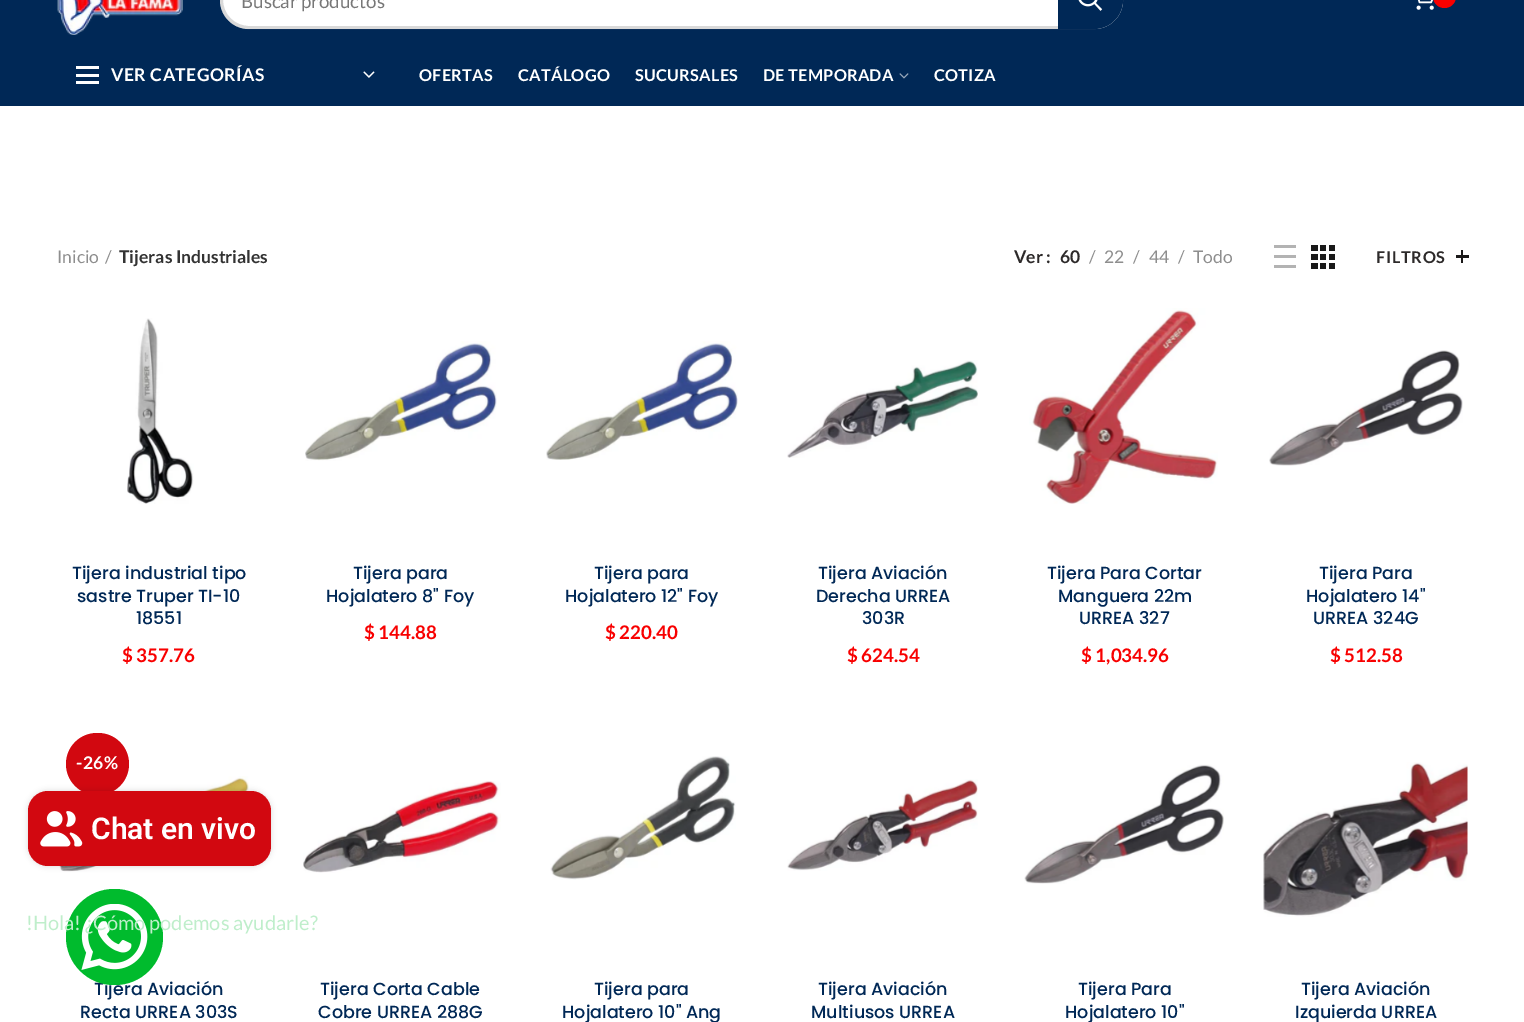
%!PS-Adobe-3.0
%%BoundingBox: 0 0 1524 1022
%%LanguageLevel: 3
%%Pages: 1
%%EndComments
%%BeginProlog
/m { moveto } bind def
/l { lineto } bind def
/c { curveto } bind def
/h { closepath } bind def
/f { fill } bind def
/S { stroke } bind def
/w { setlinewidth } bind def
/fn { [ exch dup neg 0 0 3 -1 roll 0 0 ] selectfont } def
/tx { moveto show } def
/bx { rectfill } def
/al { dup .setfillconstantalpha .setstrokeconstantalpha } def
/rr { 5 dict begin { /r /h /w /y /x } { exch def } forall
  x r add y moveto x w add y 2 copy h add r arct x w add y h add x 1 index r arct
  x y h add x y r arct x y 2 copy exch w add exch r arct closepath end } def
/sh { 12 dict begin { /a /b /q /h /w /y /x } { exch def } forall gsave /was 0 def
  9 -2 -9 { dup b mul 4 div /e exch def 1 sub .425 mul 2.718 exch exp 1 add a .99 .min exch div /now exch def
    1 1 now sub 1 was sub div sub al /was now def
    w h .min e 2 mul add 0 gt { x e sub y e sub w e 2 mul add h e 2 mul add
      q e add b .6 mul add w h .min 2 div e add .min 0 .max rr fill } if } for grestore end } def
/im { 5 dict begin { /h /w /y /x /name } { exch def } forall
  gsave x y translate w h scale
  w h 8 [w 0 0 h 0 0] name (r) file false 3 colorimage grestore end } def
%%EndProlog
%%BeginSetup
<< /PageSize [1524 1022] /PageUsesTransparency true >> setpagedevice
%%EndSetup
%%Page: 1 1
0 .pushpdf14devicefilter
0 1022 translate 1 -1 scale
4 setmiterlimit
1 setgray
0 0 1524 1022 bx
0 0.157 0.337 setrgbcolor
0 0 1524 106 bx
(image0.raw) 57 0 126 35 im
1 setgray
220 -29 903 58 29 rr f
0.3 al
0.506 setgray
3 w
221.5 -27.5 900 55 27.5 rr S
/Lato-Regular 18.75 fn
1 al
0.467 setgray
(Buscar productos) 241 8 tx
0 0.157 0.337 setrgbcolor
1058 -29 m 1094 -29 l 1110 -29 1123 -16 1123 0 c 1123 16 1110 29 1094 29 c 1058 29 l h f
(image1.raw) 1078 0 25 11 im
(image2.raw) 1416 0 18 10 im
0.973 0 0 setrgbcolor
1433 -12 23 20 11.5 rr f
1 setgray
76 74 23 3 bx
76 66 23 3 bx
76 81 23 3 bx
/Lato-Bold 17.5 fn
111 81 m 0.5 0 (VER CATEGORÍAS) ashow
(image3.raw) 363 71 12 7 im
/Lato-Bold 16.25 fn
419 81 m 0.25 0 (OFERTAS) ashow
518 81 m 0.25 0 (CATÁLOGO) ashow
635 81 m 0.25 0 (SUCURSALES) ashow
763 81 m 0.25 0 (DE TEMPORADA) ashow
(image4.raw) 899 73 10 6 im
934 81 m 0.25 0 (COTIZA) ashow
/Lato-Regular 17.5 fn
0.557 setgray
(Inicio) 57 263 tx
(/) 105 263 tx
/Lato-Bold 17.5 fn
0.2 setgray
(Tijeras Industriales) 119 263 tx
0.176 0.165 0.165 setrgbcolor
(Ver :) 1014 263 tx
(60) 1060 263 tx
/Lato-Regular 17.5 fn
0.557 setgray
(/) 1089 263 tx
(22) 1104 263 tx
(/) 1133 263 tx
(44) 1149 263 tx
(/) 1178 263 tx
(Todo) 1193 263 tx
0.702 setgray
1274 245 22 3 bx
1274 265 22 3 bx
1274 255 22 3 bx
(image5.raw) 1311 245 24 24 im
/Lato-Bold 16.25 fn
0.176 0.165 0.165 setrgbcolor
1376 263 m 0.75 0 (FILTROS) ashow
0.106 0.098 0.098 setrgbcolor
1461 250 2 13 bx
1456 255 13 3 bx
(image6.raw) 127 318 67 186 im
/Poppins-Medium 17.5 fn
0 0.157 0.337 setrgbcolor
(Tijera industrial tipo) 72 579 tx
(sastre Truper TI-10) 77 602 tx
(18551) 136 624 tx
/Lato-Bold 18.75 fn
0.973 0 0 setrgbcolor
($ 357.76) 122 662 tx
(image7.raw) 305 341 192 120 im
/Poppins-Medium 17.5 fn
0 0.157 0.337 setrgbcolor
(Tijera para) 353 579 tx
(Hojalatero 8" Foy) 326 602 tx
/Lato-Bold 18.75 fn
0.973 0 0 setrgbcolor
($ 144.88) 364 639 tx
(image8.raw) 546 341 192 119 im
/Poppins-Medium 17.5 fn
0 0.157 0.337 setrgbcolor
(Tijera para) 594 579 tx
(Hojalatero 12" Foy) 565 602 tx
/Lato-Bold 18.75 fn
0.973 0 0 setrgbcolor
($ 220.40) 605 639 tx
(image9.raw) 787 360 191 98 im
/Poppins-Medium 17.5 fn
0 0.157 0.337 setrgbcolor
(Tijera Aviación) 818 579 tx
(Derecha URREA) 816 602 tx
(303R) 862 624 tx
/Lato-Bold 18.75 fn
0.973 0 0 setrgbcolor
($ 624.54) 847 662 tx
(image10.raw) 1029 308 189 196 im
/Poppins-Medium 17.5 fn
0 0.157 0.337 setrgbcolor
(Tijera Para Cortar) 1047 579 tx
(Manguera 22m) 1058 602 tx
(URREA 327) 1079 624 tx
/Lato-Bold 18.75 fn
0.973 0 0 setrgbcolor
($ 1,034.96) 1081 662 tx
(image11.raw) 1269 350 194 116 im
/Poppins-Medium 17.5 fn
0 0.157 0.337 setrgbcolor
(Tijera Para) 1319 579 tx
(Hojalatero 14") 1306 602 tx
(URREA 324G) 1313 624 tx
/Lato-Bold 18.75 fn
0.973 0 0 setrgbcolor
($ 512.58) 1330 662 tx
(image12.raw) 59 776 190 96 im
0.824 0.031 0.063 setrgbcolor
66 733 63 62 31 rr f
/Lato-Bold 17.5 fn
1 setgray
76 769 m 0.5 0 (-26%) ashow
/Poppins-Medium 17.5 fn
0 0.157 0.337 setrgbcolor
(Tijera Aviación) 94 995 tx
(Recta URREA 303S) 80 1018 tx
(image13.raw) 303 781 198 92 im
(Tijera Corta Cable) 320 995 tx
(Cobre URREA 288G) 318 1018 tx
(image14.raw) 550 756 186 124 im
(Tijera para) 594 995 tx
(Hojalatero 10" Ang) 562 1018 tx
(image15.raw) 787 779 191 92 im
(Tijera Aviación) 818 995 tx
(Multiusos URREA) 811 1018 tx
(image16.raw) 1024 764 200 120 im
(Tijera Para) 1078 995 tx
(Hojalatero 10") 1065 1018 tx
(image17.raw) 1263 762 205 155 im
(Tijera Aviación) 1301 995 tx
(Izquierda URREA) 1295 1018 tx
0 setgray
28 791 243 75 20 3 0.15 sh
0.824 0.031 0.063 setrgbcolor
28 791 243 75 20 rr f
(image18.raw) 40 811 43 36 im
/Roboto-SemiBold 30 fn
1 setgray
(Chat en vivo) 91 839 tx
0 0.733 0.176 setrgbcolor
66 889 97 96 48 rr f
(image19.raw) 81 904 67 66 im
/Lato-Regular 20 fn
0.749 0.933 0.796 setrgbcolor
(!Hola! ¿Cómo podemos ayudarle?) 26 930 tx
.poppdf14devicefilter showpage
%%EOF
